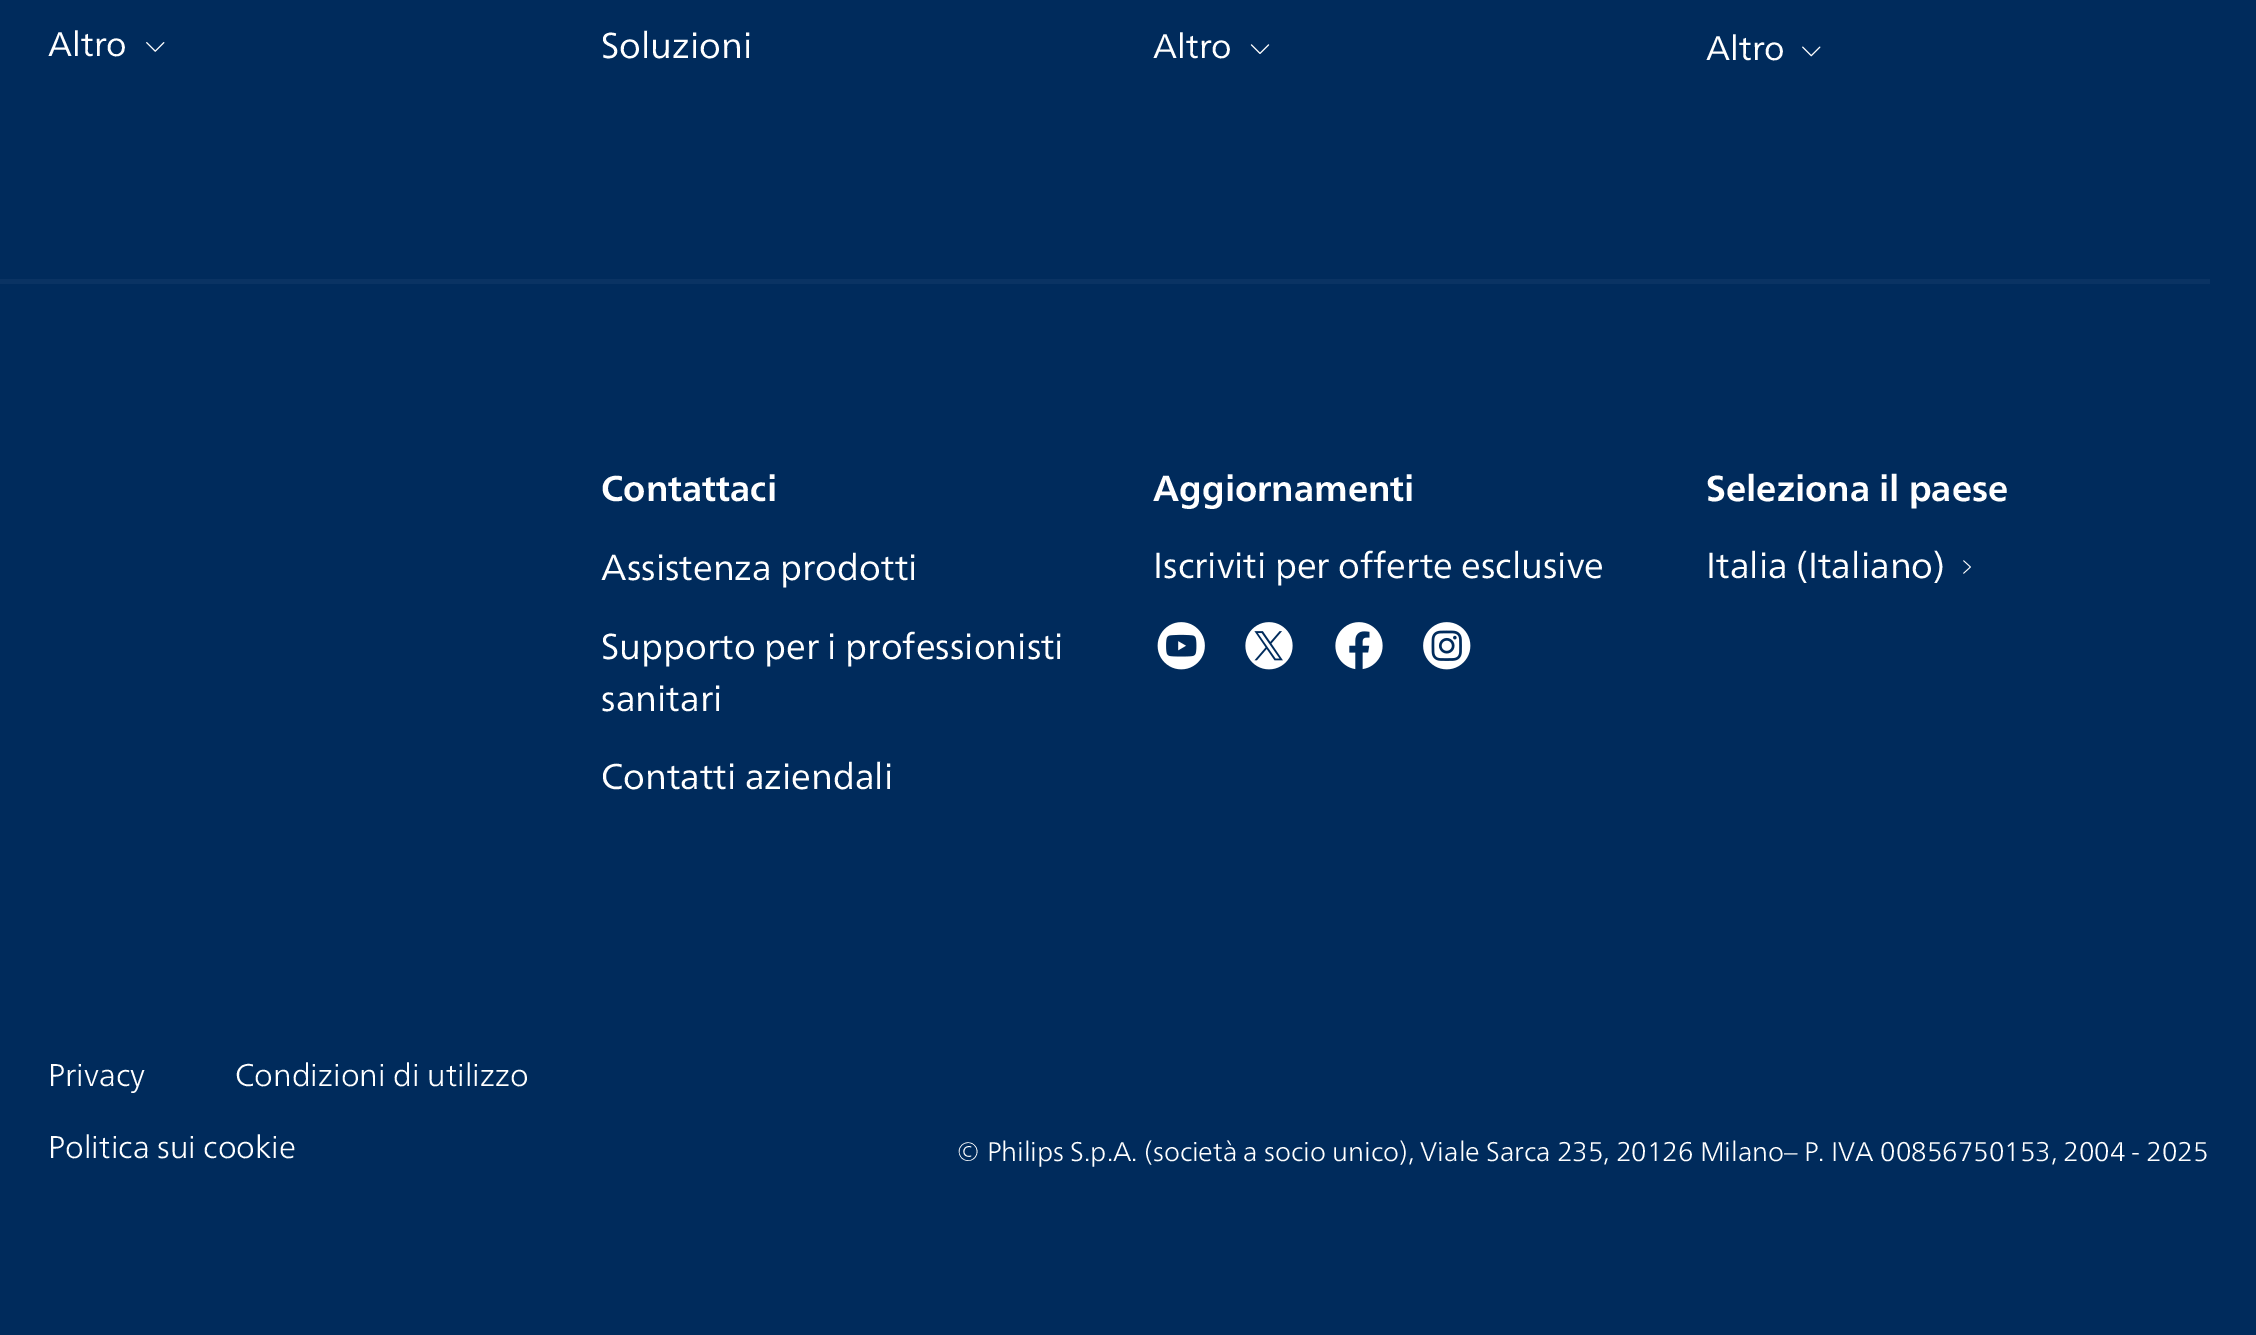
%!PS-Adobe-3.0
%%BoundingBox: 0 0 2256 1335
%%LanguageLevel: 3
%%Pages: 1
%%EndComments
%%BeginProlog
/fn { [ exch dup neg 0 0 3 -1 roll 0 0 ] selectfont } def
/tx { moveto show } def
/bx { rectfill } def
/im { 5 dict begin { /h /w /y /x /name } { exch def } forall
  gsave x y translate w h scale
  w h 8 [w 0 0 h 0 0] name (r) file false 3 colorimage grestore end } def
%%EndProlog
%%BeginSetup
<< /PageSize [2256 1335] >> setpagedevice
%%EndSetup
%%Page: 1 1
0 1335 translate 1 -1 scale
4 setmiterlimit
0 0.169 0.361 setrgbcolor
0 0 2256 1335 bx
/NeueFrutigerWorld-Regular 34 fn
1 setgray
(Altro) 48 56 tx
(image0.raw) 146 42 19 10 im
/NeueFrutigerWorld-Regular 36 fn
(Soluzioni) 601 58 tx
/NeueFrutigerWorld-Regular 34 fn
(Altro) 1153 58 tx
(image1.raw) 1250 44 20 10 im
(Altro) 1706 60 tx
(image2.raw) 1802 46 19 11 im
0.039 0.2 0.388 setrgbcolor
0 279 2210 5 bx
/NeueFrutigerWorld-Bold 36 fn
1 setgray
(Contattaci) 601 501 tx
/NeueFrutigerWorld-Regular 36 fn
(Assistenza prodotti) 601 580 tx
(Supporto per i professionisti) 601 659 tx
(sanitari) 601 711 tx
(Contatti aziendali) 601 789 tx
/NeueFrutigerWorld-Bold 36 fn
(Aggiornamenti) 1153 501 tx
/NeueFrutigerWorld-Regular 36 fn
(Iscriviti per offerte esclusive) 1153 578 tx
(image3.raw) 1157 622 48 48 im
(image4.raw) 1245 622 48 48 im
(image5.raw) 1335 622 48 48 im
(image6.raw) 1423 622 48 48 im
/NeueFrutigerWorld-Bold 36 fn
(Seleziona il paese) 1706 501 tx
/NeueFrutigerWorld-Regular 36 fn
(Italia \(Italiano\)) 1706 578 tx
(image7.raw) 1963 560 8 14 im
/NeueFrutigerWorld-Light 31.5 fn
(Privacy) 48 1086 tx
(Condizioni di utilizzo) 235 1086 tx
(Politica sui cookie) 48 1158 tx
/NeueFrutigerWorld-Light 27 fn
(© Philips S.p.A. \(società a socio unico\), Viale Sarca 235, 20126 Milano– P. IVA 00856750153, 2004 - 2025) 956 1161 tx
showpage
%%EOF
